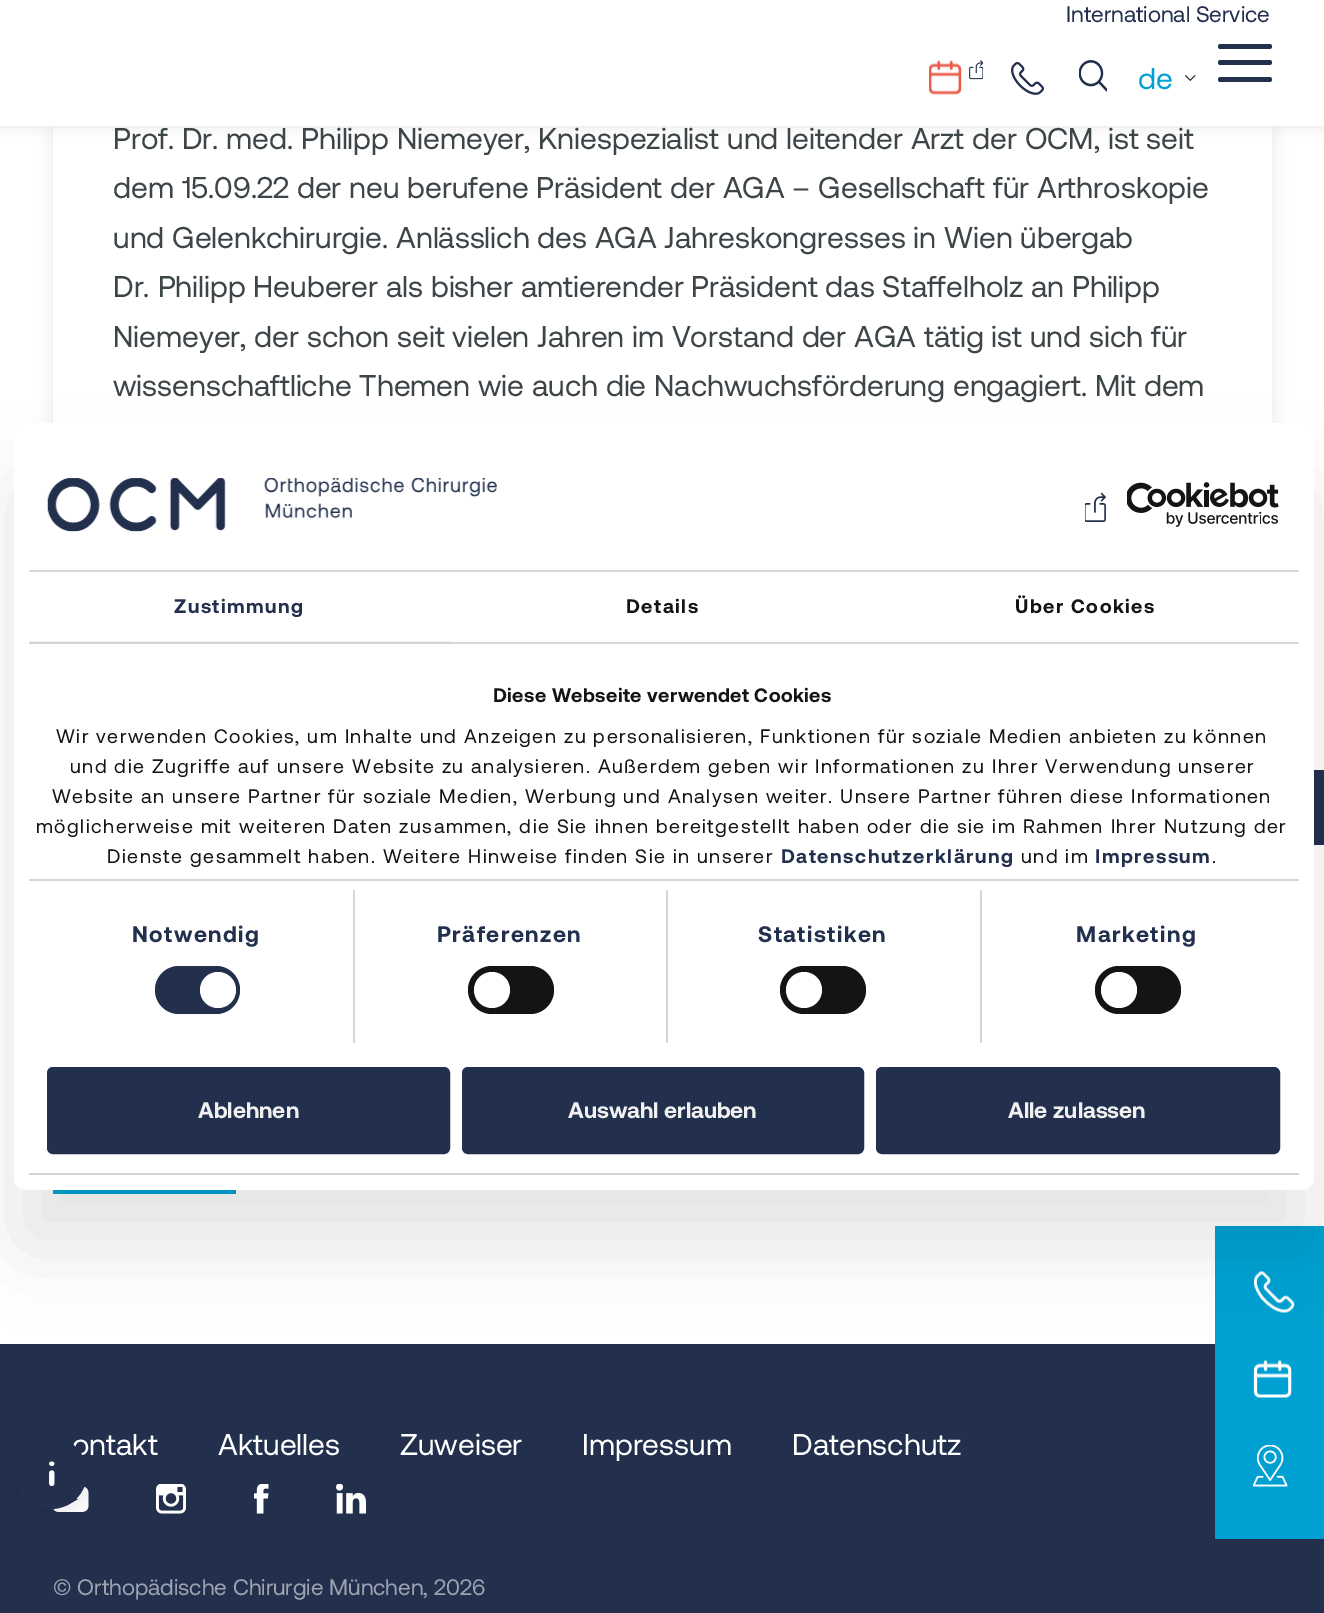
%!PS-Adobe-3.0
%%BoundingBox: 0 0 1324 1613
%%LanguageLevel: 3
%%Pages: 1
%%EndComments
%%BeginProlog
/m { moveto } bind def
/l { lineto } bind def
/h { closepath } bind def
/f { fill } bind def
/S { stroke } bind def
/q { gsave } bind def
/Q { grestore } bind def
/w { setlinewidth } bind def
/fn { [ exch dup neg 0 0 3 -1 roll 0 0 ] selectfont } def
/tx { moveto show } def
/bx { rectfill } def
/al { dup .setfillconstantalpha .setstrokeconstantalpha } def
/ci { newpath 0 360 arc closepath } def
/rr { 5 dict begin { /r /h /w /y /x } { exch def } forall
  x r add y moveto x w add y 2 copy h add r arct x w add y h add x 1 index r arct
  x y h add x y r arct x y 2 copy exch w add exch r arct closepath end } def
/sh { 12 dict begin { /a /b /q /h /w /y /x } { exch def } forall gsave /was 0 def
  9 -2 -9 { dup b mul 4 div /e exch def 1 sub .425 mul 2.718 exch exp 1 add a .99 .min exch div /now exch def
    1 1 now sub 1 was sub div sub al /was now def
    w h .min e 2 mul add 0 gt { x e sub y e sub w e 2 mul add h e 2 mul add
      q e add b .6 mul add w h .min 2 div e add .min 0 .max rr fill } if } for grestore end } def
/im { 5 dict begin { /h /w /y /x /name } { exch def } forall
  gsave x y translate w h scale
  w h 8 [w 0 0 h 0 0] name (r) file false 3 colorimage grestore end } def
%%EndProlog
%%BeginSetup
<< /PageSize [1324 1613] /PageUsesTransparency true >> setpagedevice
%%EndSetup
%%Page: 1 1
0 .pushpdf14devicefilter
0 1613 translate 1 -1 scale
4 setmiterlimit
1 setgray
0 0 1324 1613 bx
0 setgray
0 0 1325 126 0 7.5 0.1 sh
q
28 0 m 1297 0 l 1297 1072 l 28 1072 l h 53 -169 m 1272 -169 l 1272 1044 l 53 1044 l h eoclip newpath
0.835 setgray
53 -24 1219 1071 0 8 0.5 sh
Q
1 setgray
0 0 1324 126 bx
/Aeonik-Regular 22.5 fn
0.133 0.188 0.306 setrgbcolor
(International Service) 1066 22 tx
(image0.raw) 929 60 33 35 im
(image1.raw) 969 60 14 20 im
(image2.raw) 1011 62 33 33 im
(image3.raw) 1079 60 28 32 im
/Aeonik-Regular 30 fn
0 0.631 0.824 setrgbcolor
(de) 1138 89 tx
(image4.raw) 1185 75 11 6 im
0.133 0.188 0.306 setrgbcolor
1218 60 54 5 2.5 rr f
1218 44 54 5 2.5 rr f
1218 77 54 5 2.5 rr f
0.239 0.271 0.282 setrgbcolor
(Prof. Dr. med. Philipp Niemeyer, Kniespezialist und leitender Arzt der OCM, ist seit) 113 149 tx
(dem 15.09.22 der neu berufene Präsident der AGA – Gesellschaft für Arthroskopie) 113 198 tx
(und Gelenkchirurgie. Anlässlich des AGA Jahreskongresses in Wien übergab) 113 248 tx
(Dr. Philipp Heuberer als bisher amtierender Präsident das Staffelholz an Philipp) 113 297 tx
(Niemeyer, der schon seit vielen Jahren im Vorstand der AGA tätig ist und sich für) 113 347 tx
(wissenschaftliche Themen wie auch die Nachwuchsförderung engagiert. Mit dem) 113 396 tx
0 0.631 0.824 setrgbcolor
53 1190 183 4 bx
0.133 0.188 0.306 setrgbcolor
1314 770 10 75 bx
0 1344 1324 269 bx
0 0.631 0.824 setrgbcolor
1215 1226 109 313 bx
(image13.raw) 1254 1271 41 42 im
(image14.raw) 1253 1360 39 38 im
0 setgray
14 483 1300 767 12 37.5 0.1 sh
1 setgray
14 423 1300 767 12 rr f
0.839 setgray
29 570 1270 2 bx
(image5.raw) 47 478 450 54 im
(image6.raw) 1085 492 21 30 im
(image7.raw) 1127 482 152 45 im
29 642 1270 2 bx
0.941 setgray
29 641 423 1 bx
/Aeonik-Bold 19.5 fn
0.133 0.188 0.306 setrgbcolor
174 613 m 1.5 0 (Zustimmung) ashow
0.078 setgray
626 613 m 1.5 0 (Details) ashow
1015 613 m 1.5 0 (Über Cookies) ashow
0.839 setgray
29 879 1270 2 bx
0.078 setgray
493 702 m 0.4 0 (Diese Webseite verwendet Cookies) ashow
/Aeonik-Regular 19.5 fn
56 743 m 1.5 0 (Wir verwenden Cookies, um Inhalte und Anzeigen zu personalisieren, Funktionen für soziale Medien anbieten zu können) ashow
70 773 m 1.5 0 (und die Zugriffe auf unsere Website zu analysieren. Außerdem geben wir Informationen zu Ihrer Verwendung unserer) ashow
52 803 m 1.5 0 (Website an unsere Partner für soziale Medien, Werbung und Analysen weiter. Unsere Partner führen diese Informationen) ashow
36 833 m 1.5 0 (möglicherweise mit weiteren Daten zusammen, die Sie ihnen bereitgestellt haben oder die sie im Rahmen Ihrer Nutzung der) ashow
107 863 m 1.5 0 (Dienste gesammelt haben. Weitere Hinweise finden Sie in unserer) ashow
/Aeonik-Bold 19.5 fn
0.133 0.188 0.306 setrgbcolor
781 863 m 1.5 0 (Datenschutzerklärung) ashow
/Aeonik-Regular 19.5 fn
0.078 setgray
1021 863 m 1.5 0 (und im) ashow
/Aeonik-Bold 19.5 fn
0.133 0.188 0.306 setrgbcolor
1095 863 m 1.5 0 (Impressum) ashow
/Aeonik-Regular 19.5 fn
0.078 setgray
1212 863 m 1.5 0 (.) ashow
0.839 setgray
353 890 2 153 bx
/Aeonik-Bold 22.5 fn
0.133 0.188 0.306 setrgbcolor
132 942 m 1.5 0 (Notwendig) ashow
155 966 85 48 24 rr f
1 setgray
218 990 18 ci f
0.839 setgray
666 890 2 153 bx
0.133 0.188 0.306 setrgbcolor
437 942 m 1.5 0 (Präferenzen) ashow
0.078 setgray
468 966 86 48 24 rr f
1 setgray
492 990 18 ci f
0.839 setgray
980 890 2 153 bx
0.133 0.188 0.306 setrgbcolor
758 942 m 1.5 0 (Statistiken) ashow
0.078 setgray
780 966 86 48 24 rr f
1 setgray
804 990 18 ci f
0.133 0.188 0.306 setrgbcolor
1076 942 m 1.5 0 (Marketing) ashow
0.078 setgray
1095 966 86 48 24 rr f
1 setgray
1119 990 18 ci f
0.839 setgray
29 1173 1270 2 bx
0.133 0.188 0.306 setrgbcolor
48.5 1068.5 400 84 4.5 rr q f Q
3 w
S
0.941 setgray
(Ablehnen) 198 1118 tx
0.133 0.188 0.306 setrgbcolor
463.5 1068.5 399 84 4.5 rr q f Q
S
0.941 setgray
(Auswahl erlauben) 568 1118 tx
0.133 0.188 0.306 setrgbcolor
877.5 1068.5 401 84 4.5 rr q f Q
S
0.941 setgray
(Alle zulassen) 1008 1118 tx
(image9.raw) 53 1487 36 25 im
0 setgray
15 1440 72 72 36 11 0.1 sh
/Aeonik-Regular 30 fn
1 setgray
(ontakt) 72 1455 tx
0.133 0.188 0.306 setrgbcolor
51 1473 36 ci f
(image8.raw) 49 1461 6 25 im
1 setgray
(Aktuelles) 218 1455 tx
(Zuweiser) 400 1455 tx
(Impressum) 582 1455 tx
(Datenschutz) 792 1455 tx
(image10.raw) 156 1484 30 30 im
(image11.raw) 254 1484 15 30 im
(image12.raw) 336 1484 30 30 im
/Aeonik-Regular 22.5 fn
0.612 0.635 0.686 setrgbcolor
(© Orthopädische Chirurgie München, 2026) 53 1595 tx
(image15.raw) 1253 1445 35 42 im
.poppdf14devicefilter showpage
%%EOF
